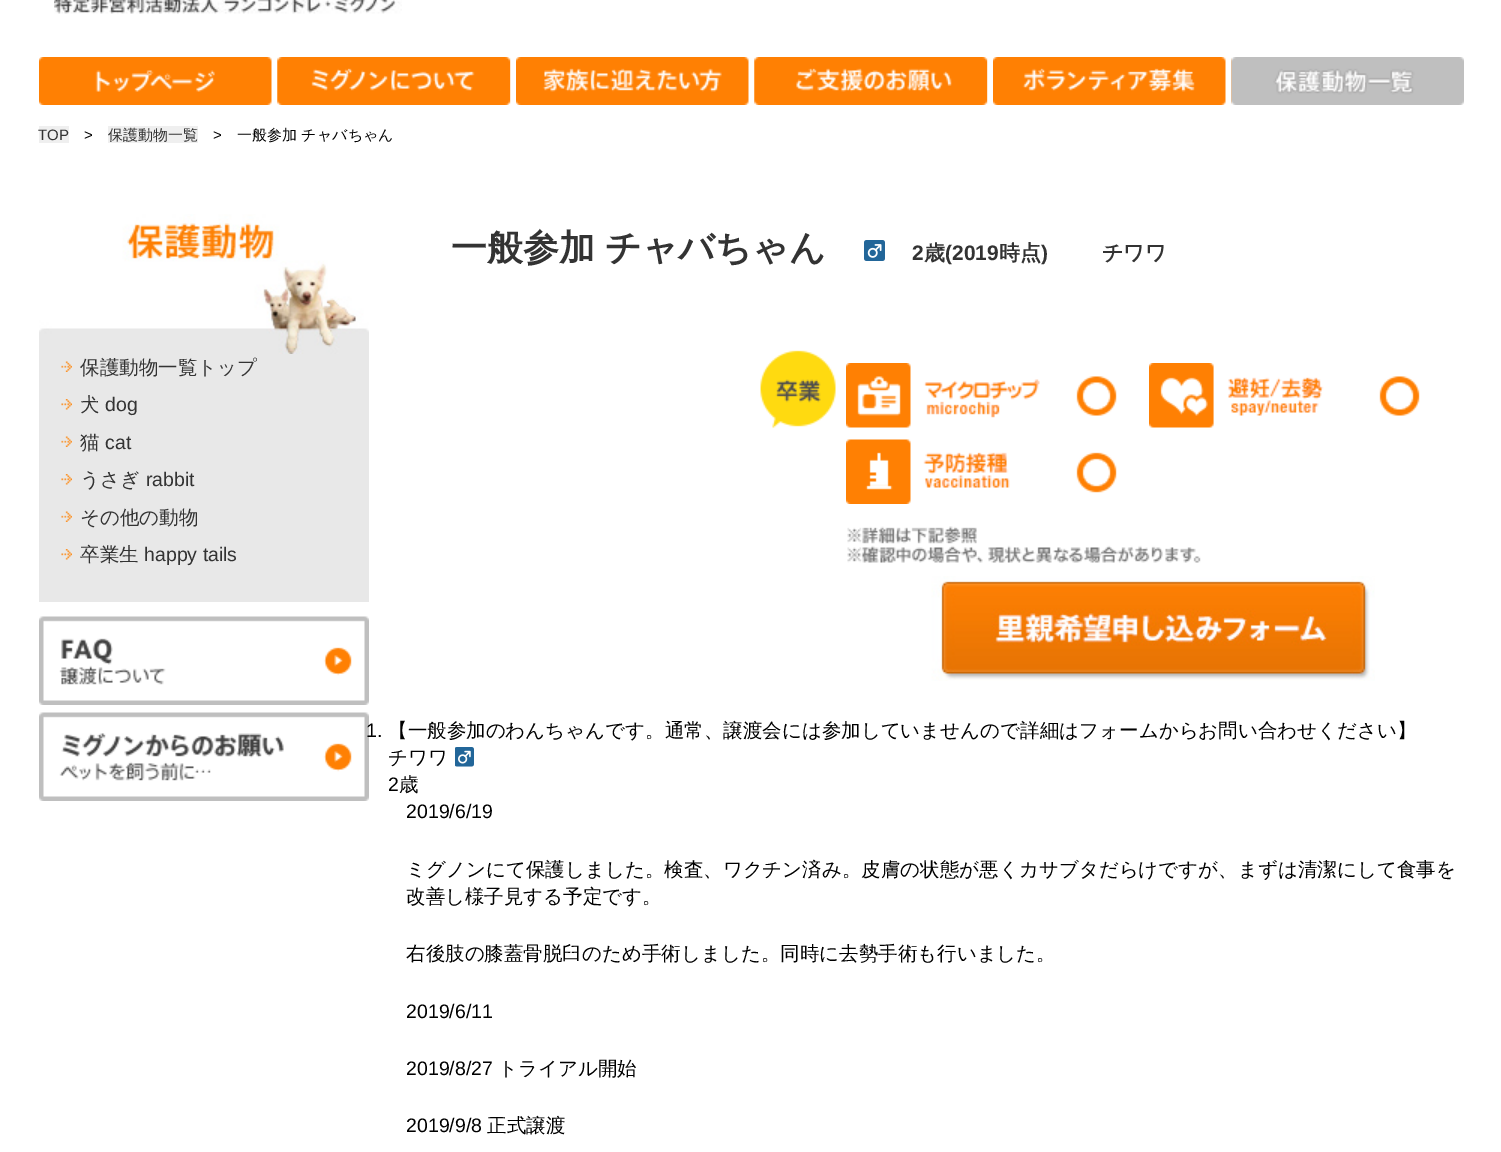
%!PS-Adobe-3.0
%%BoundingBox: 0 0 1501 1152
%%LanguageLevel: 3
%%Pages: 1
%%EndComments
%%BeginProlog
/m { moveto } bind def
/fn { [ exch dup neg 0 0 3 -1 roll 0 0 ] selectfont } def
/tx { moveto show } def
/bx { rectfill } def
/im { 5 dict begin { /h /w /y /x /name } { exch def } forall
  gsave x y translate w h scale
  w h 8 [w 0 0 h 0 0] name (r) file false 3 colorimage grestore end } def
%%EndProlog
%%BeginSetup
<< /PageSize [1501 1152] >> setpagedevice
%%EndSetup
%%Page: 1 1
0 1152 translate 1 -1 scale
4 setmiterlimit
1 setgray
0 0 1501 1152 bx
(image0.raw) 54 0 348 14 im
(image1.raw) 39 57 233 48 im
(image2.raw) 277 57 234 48 im
(image3.raw) 277 57 233 48 im
(image4.raw) 516 57 233 48 im
(image5.raw) 754 57 234 48 im
(image6.raw) 754 57 233 48 im
(image7.raw) 993 57 233 48 im
(image8.raw) 1231 57 1 48 im
(image9.raw) 1231 57 233 48 im
0.937 setgray
39 126 30 17 bx
/LiberationSans-Regular 15 fn
0.2 setgray
(TOP) 38 140 tx
0 setgray
(>) 84 140 tx
0.937 setgray
108 126 90 17 bx
/WenQuanYiZenHei-Medium 15 fn
0.2 setgray
(保護動物一覧) 108 140 tx
/LiberationSans-Regular 15 fn
0 setgray
(>) 213 140 tx
/WenQuanYiZenHei-Medium 15 fn
(一般参加 チャバちゃん) 237 140 tx
(image10.raw) 39 214 330 140 im
0.91 setgray
39 354 330 248 bx
(image11.raw) 61 361 11 11 im
/WenQuanYiZenHei-Medium 19.5 fn
0.2 setgray
(保護動物一覧トップ) 80 374 tx
(image12.raw) 61 399 11 11 im
(犬) 80 411 tx
/LiberationSans-Regular 19.5 fn
(dog) 105 411 tx
(image11.raw) 61 436 11 11 im
/WenQuanYiZenHei-Medium 19.5 fn
(猫) 80 449 tx
/LiberationSans-Regular 19.5 fn
(cat) 105 449 tx
(image12.raw) 61 474 11 11 im
/WenQuanYiZenHei-Medium 19.5 fn
(うさぎ) 80 486 tx
/LiberationSans-Regular 19.5 fn
(rabbit) 146 486 tx
(image11.raw) 61 511 11 11 im
/WenQuanYiZenHei-Medium 19.5 fn
(その他の動物) 80 524 tx
(image12.raw) 61 549 11 11 im
(卒業生) 80 561 tx
/LiberationSans-Regular 19.5 fn
(happy tails) 144 561 tx
(image13.raw) 39 616 330 89 im
(image14.raw) 39 712 330 89 im
/WenQuanYiZenHei-Bold 36 fn
451 260 m -1 0 32 (一般参加 チャバちゃん) widthshow
(image15.raw) 864 240 21 21 im
/LiberationSans-Bold 21 fn
(2) 912 260 tx
/WenQuanYiZenHei-Bold 21 fn
(歳) 924 260 tx
/LiberationSans-Bold 21 fn
(\(2019) 945 260 tx
/WenQuanYiZenHei-Bold 21 fn
(時点) 999 260 tx
/LiberationSans-Bold 21 fn
(\)) 1041 260 tx
/WenQuanYiZenHei-Bold 21 fn
(チワワ) 1102 260 tx
(image16.raw) 760 350 76 79 im
(image17.raw) 760 350 76 79 im
(image18.raw) 846 363 271 65 im
(image19.raw) 1149 363 271 65 im
(image20.raw) 846 439 271 65 im
(image21.raw) 847 526 354 37 im
(image22.raw) 931 576 444 105 im
/LiberationSans-Regular 19.5 fn
0 setgray
(1.) 366 737 tx
/WenQuanYiZenHei-Medium 19.5 fn
(【一般参加のわんちゃんです。通常、譲渡会には参加していませんので詳細はフォームからお問い合わせください】) 388 737 tx
(チワワ) 388 764 tx
(image23.raw) 455 747 19 20 im
/LiberationSans-Regular 19.5 fn
(2) 388 791 tx
/WenQuanYiZenHei-Medium 19.5 fn
(歳) 399 791 tx
/LiberationSans-Regular 19.5 fn
(2019/6/19) 406 818 tx
/WenQuanYiZenHei-Medium 19.5 fn
(ミグノンにて保護しました。検査、ワクチン済み。皮膚の状態が悪くカサブタだらけですが、まずは清潔にして食事を) 406 876 tx
(改善し様子見する予定です。) 406 903 tx
(右後肢の膝蓋骨脱臼のため手術しました。同時に去勢手術も行いました。) 406 960 tx
/LiberationSans-Regular 19.5 fn
(2019/6/11) 406 1018 tx
(2019/8/27) 406 1075 tx
/WenQuanYiZenHei-Medium 19.5 fn
(トライアル開始) 498 1075 tx
/LiberationSans-Regular 19.5 fn
(2019/9/8) 406 1132 tx
/WenQuanYiZenHei-Medium 19.5 fn
(正式譲渡) 487 1132 tx
showpage
%%EOF
